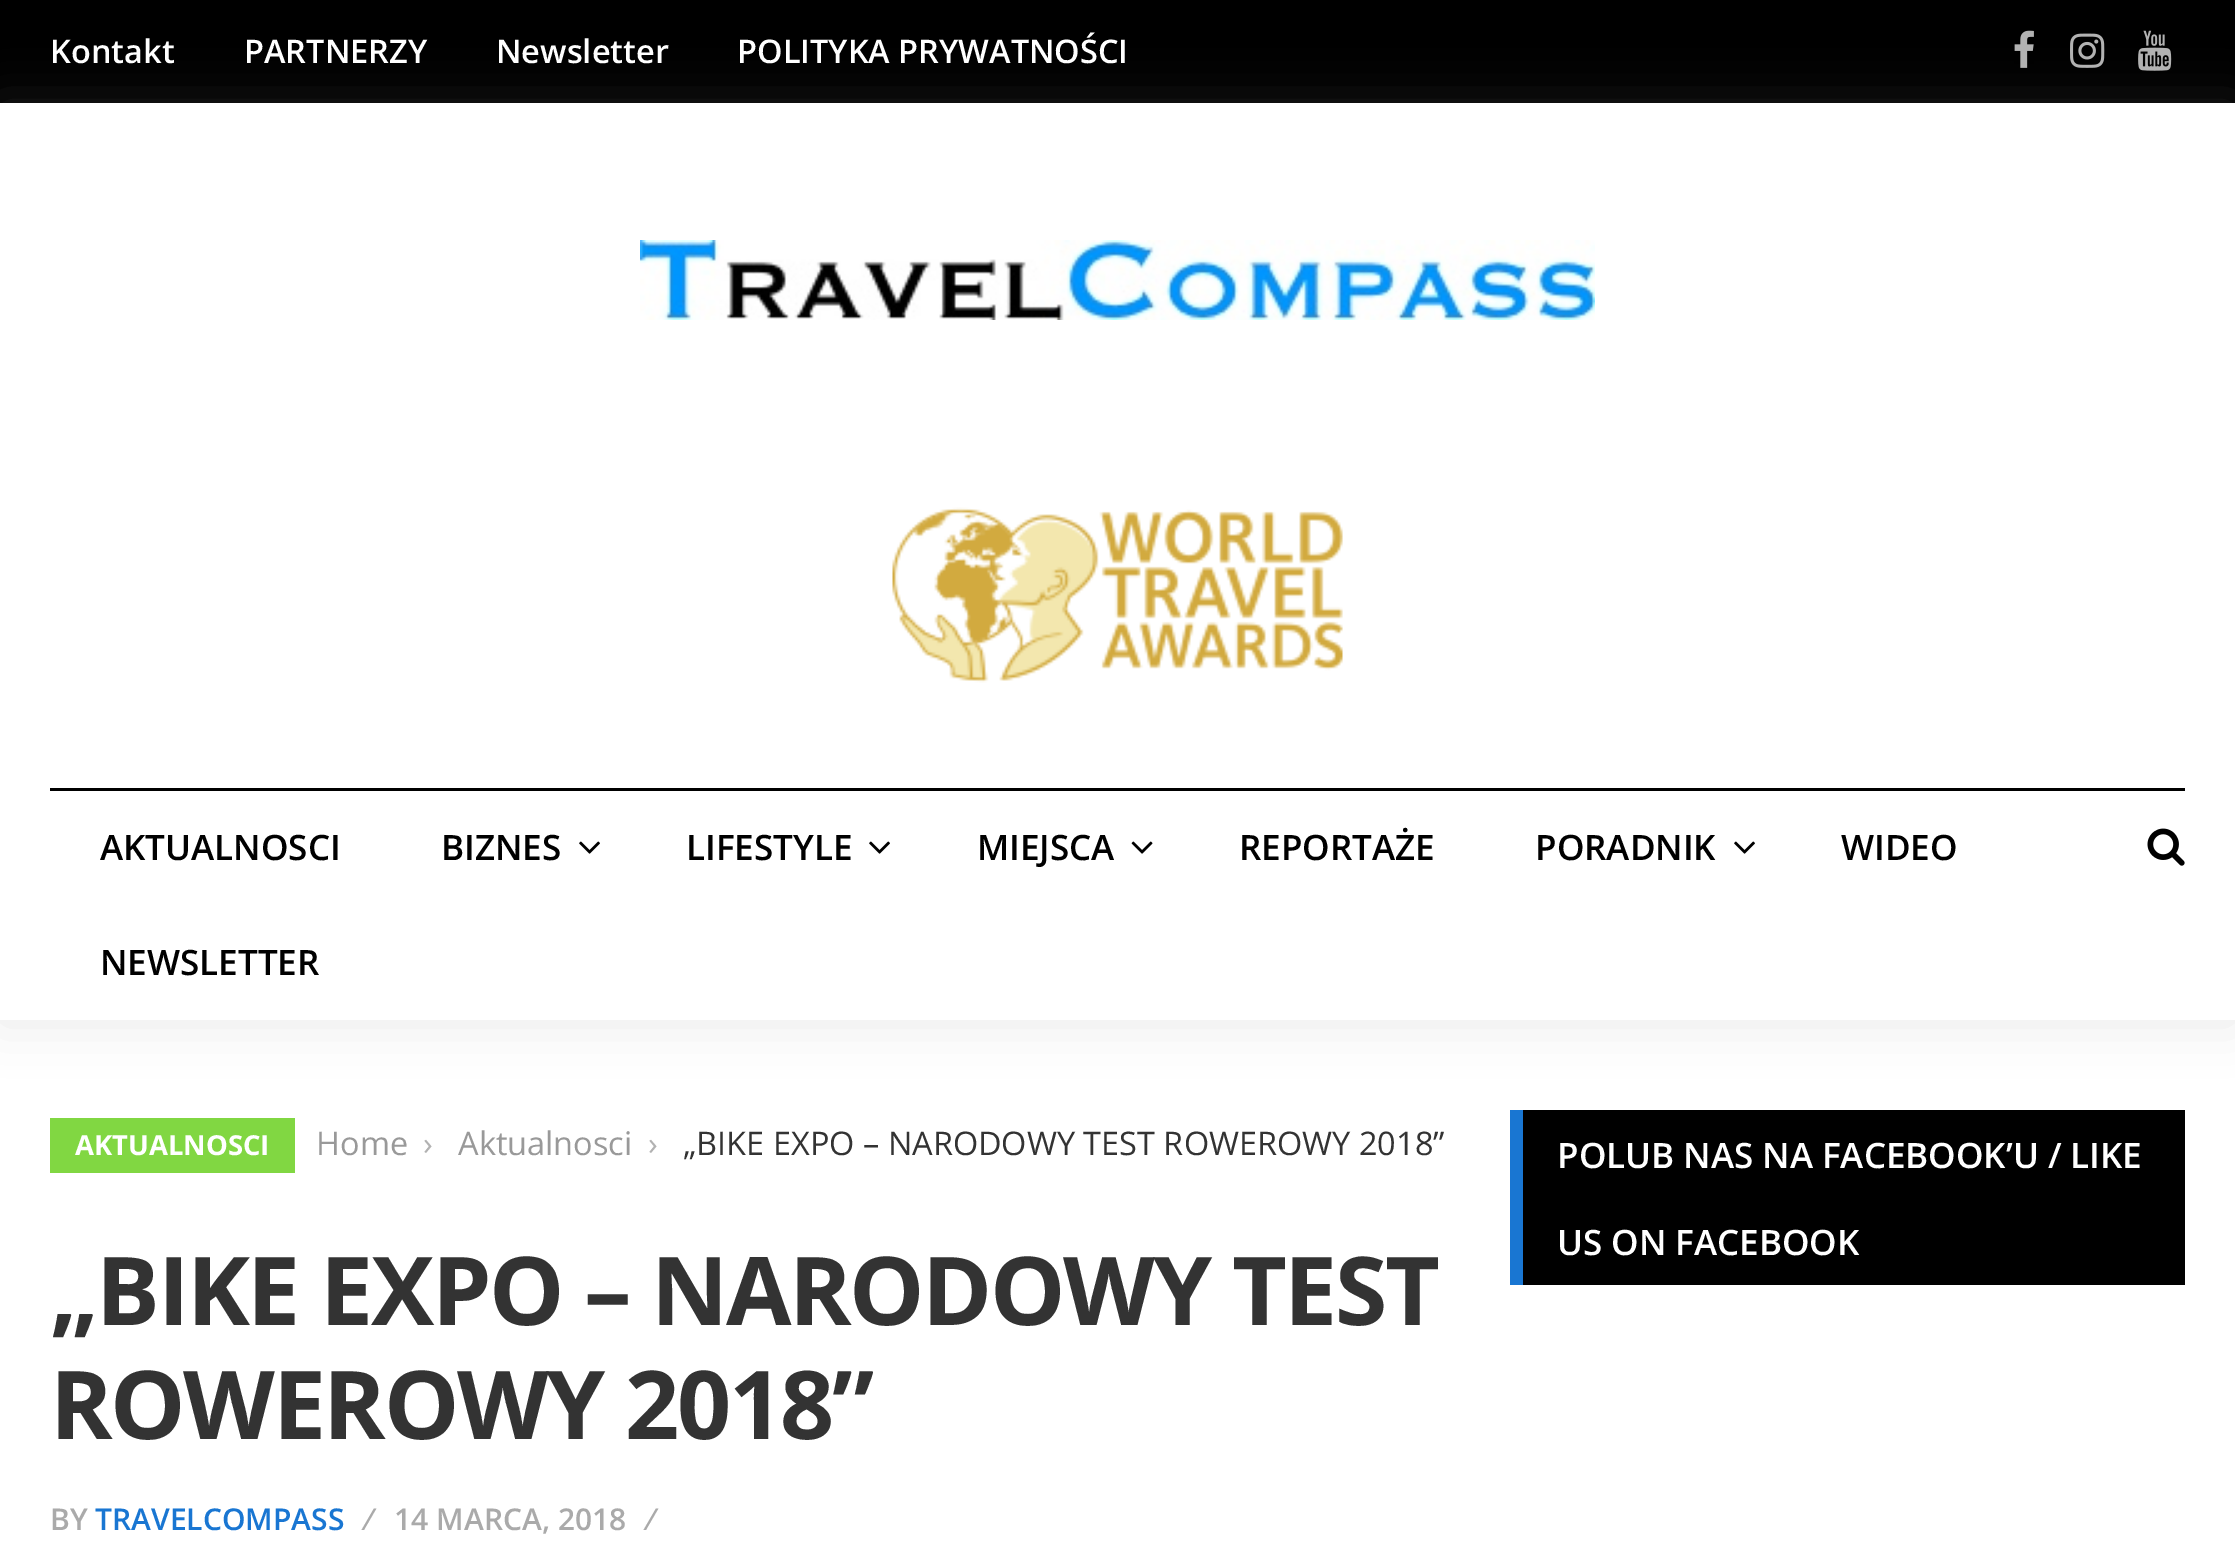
%!PS-Adobe-3.0
%%BoundingBox: 0 0 2235 1546
%%LanguageLevel: 3
%%Pages: 1
%%EndComments
%%BeginProlog
/m { moveto } bind def
/l { lineto } bind def
/h { closepath } bind def
/q { gsave } bind def
/Q { grestore } bind def
/fn { [ exch dup neg 0 0 3 -1 roll 0 0 ] selectfont } def
/tx { moveto show } def
/bx { rectfill } def
/al { dup .setfillconstantalpha .setstrokeconstantalpha } def
/rr { 5 dict begin { /r /h /w /y /x } { exch def } forall
  x r add y moveto x w add y 2 copy h add r arct x w add y h add x 1 index r arct
  x y h add x y r arct x y 2 copy exch w add exch r arct closepath end } def
/sh { 12 dict begin { /a /b /q /h /w /y /x } { exch def } forall gsave /was 0 def
  9 -2 -9 { dup b mul 4 div /e exch def 1 sub .425 mul 2.718 exch exp 1 add a .99 .min exch div /now exch def
    1 1 now sub 1 was sub div sub al /was now def
    w h .min e 2 mul add 0 gt { x e sub y e sub w e 2 mul add h e 2 mul add
      q e add b .6 mul add w h .min 2 div e add .min 0 .max rr fill } if } for grestore end } def
/im { 5 dict begin { /h /w /y /x /name } { exch def } forall
  gsave x y translate w h scale
  w h 8 [w 0 0 h 0 0] name (r) file false 3 colorimage grestore end } def
%%EndProlog
%%BeginSetup
<< /PageSize [2235 1546] /PageUsesTransparency true >> setpagedevice
%%EndSetup
%%Page: 1 1
0 .pushpdf14devicefilter
0 1546 translate 1 -1 scale
4 setmiterlimit
1 setgray
0 0 2235 1546 bx
0 setgray
0 0 2235 103 bx
q
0 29 m 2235 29 l 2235 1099 l 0 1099 l h 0 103 m 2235 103 l 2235 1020 l 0 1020 l h eoclip newpath
0.6 setgray
0 105 2235 918 0 25 0.2 sh
Q
/OpenSans-SemiBold 32.5 fn
1 setgray
(Kontakt) 50 63 tx
(PARTNERZY) 244 63 tx
(Newsletter) 496 63 tx
(POLITYKA PRYWATNOŚCI) 737 63 tx
(image0.raw) 2014 30 20 38 im
(image1.raw) 2070 33 35 35 im
(image2.raw) 2138 30 34 41 im
(image3.raw) 640 240 955 80 im
(image4.raw) 892 507 451 176 im
0 setgray
50 788 2135 3 bx
/OpenSans-SemiBold 35 fn
(AKTUALNOSCI) 100 860 tx
(BIZNES) 441 860 tx
(image5.raw) 579 841 21 13 im
(LIFESTYLE) 686 860 tx
(image5.raw) 869 841 21 13 im
(MIEJSCA) 977 860 tx
(image6.raw) 1131 841 22 13 im
(REPORTAŻE) 1239 860 tx
(PORADNIK) 1535 860 tx
(image5.raw) 1734 841 21 13 im
(WIDEO) 1841 860 tx
(NEWSLETTER) 100 975 tx
(image7.raw) 2147 828 38 38 im
0.506 0.843 0.259 setrgbcolor
50 1118 245 55 bx
/OpenSans-Bold 27.5 fn
1 setgray
(AKTUALNOSCI) 75 1155 tx
/OpenSans-Regular 32.5 fn
0.6 setgray
(Home) 316 1155 tx
0.698 setgray
(›) 423 1155 tx
0.6 setgray
(Aktualnosci) 458 1155 tx
0.698 setgray
(›) 648 1155 tx
0.2 setgray
(„BIKE EXPO – NARODOWY TEST ROWEROWY 2018”) 683 1155 tx
/OpenSans-Bold 95 fn
50 1325 m -2.5 0 („BIKE EXPO – NARODOWY TEST) ashow
50 1439 m -2.5 0 (ROWEROWY 2018”) ashow
/OpenSans-SemiBold 30 fn
0.667 setgray
(BY) 50 1530 tx
0.098 0.463 0.824 setrgbcolor
(TRAVELCOMPASS) 95 1530 tx
0.667 setgray
(⁄) 367 1530 tx
(14 MARCA, 2018) 394 1530 tx
(⁄) 649 1530 tx
0 setgray
1523 1110 662 175 bx
0.098 0.463 0.824 setrgbcolor
1510 1110 13 175 bx
/OpenSans-SemiBold 35 fn
1 setgray
(POLUB NAS NA FACEBOOK’U / LIKE) 1557 1168 tx
(US ON FACEBOOK) 1557 1255 tx
.poppdf14devicefilter showpage
%%EOF
